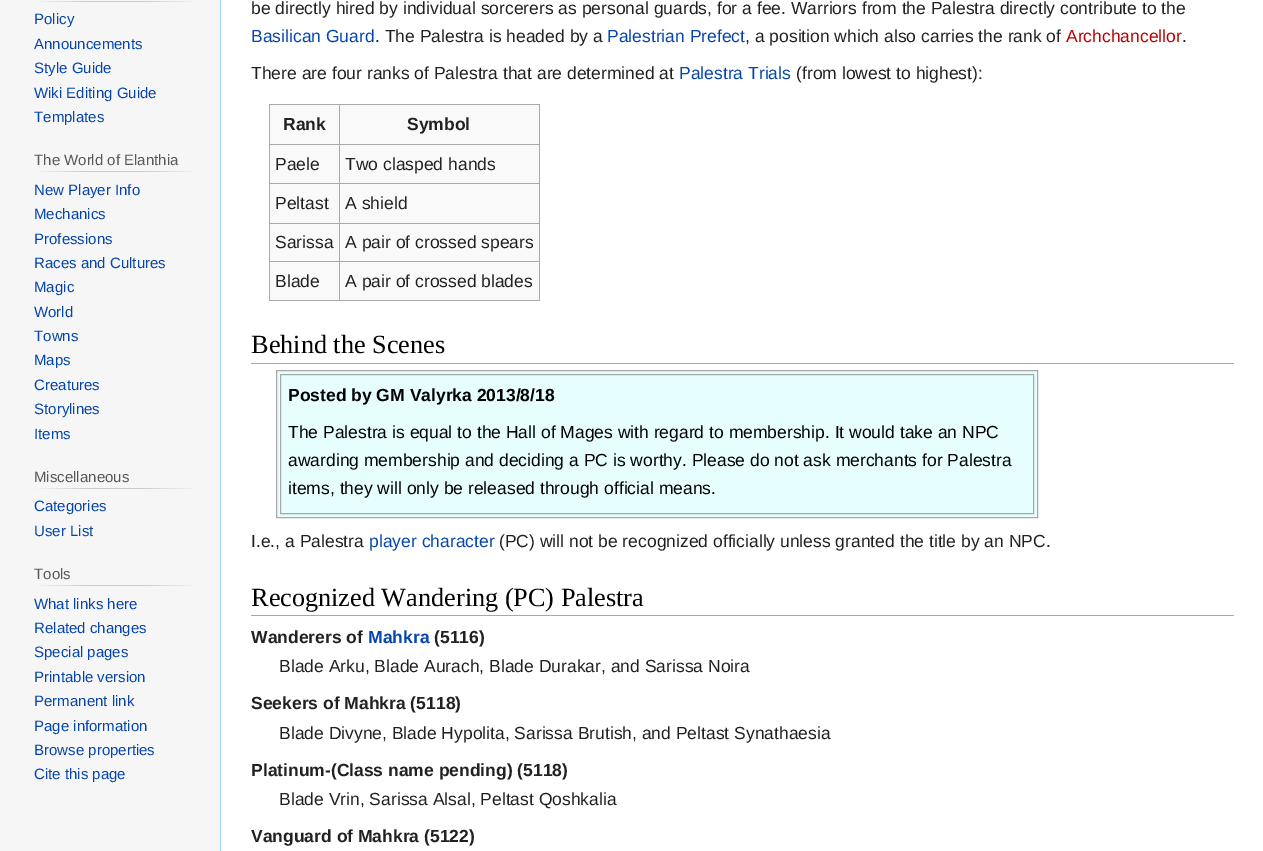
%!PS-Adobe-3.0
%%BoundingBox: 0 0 1263 851
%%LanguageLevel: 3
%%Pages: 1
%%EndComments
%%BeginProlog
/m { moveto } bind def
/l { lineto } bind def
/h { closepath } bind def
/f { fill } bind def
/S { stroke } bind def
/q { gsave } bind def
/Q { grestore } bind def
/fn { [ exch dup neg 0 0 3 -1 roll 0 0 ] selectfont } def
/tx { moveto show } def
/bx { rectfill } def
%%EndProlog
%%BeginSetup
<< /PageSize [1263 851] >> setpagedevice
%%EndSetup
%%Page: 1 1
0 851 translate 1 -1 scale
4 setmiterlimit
0.965 setgray
0 0 1263 851 bx
q 34 1 m 198 1 l 198 2 l 34 2 l h clip newpath
<< /ShadingType 2 /ColorSpace /DeviceRGB /Coords [34 1.9 198 1.9] /Extend [true true] /Function << /FunctionType 3 /Domain [0 1] /Functions [<< /FunctionType 2 /Domain [0 1] /C0 [0.965 0.965 0.965] /C1 [0.784 0.8 0.82] /N 1 >> << /FunctionType 2 /Domain [0 1] /C0 [0.784 0.8 0.82] /C1 [0.784 0.8 0.82] /N 1 >> << /FunctionType 2 /Domain [0 1] /C0 [0.784 0.8 0.82] /C1 [0.965 0.965 0.965] /N 1 >>] /Bounds [0.33 0.66] /Encode [0 1 0 1 0 1] >> >> shfill Q
/LiberationSans-Regular 15 fn
0.024 0.271 0.678 setrgbcolor
(Policy) 34 24 tx
(Announcements) 34 49 tx
(Style Guide) 34 73 tx
(Wiki Editing Guide) 34 98 tx
(Templates) 34 122 tx
q 34 171 m 198 171 l 198 172 l 34 172 l h clip newpath
<< /ShadingType 2 /ColorSpace /DeviceRGB /Coords [34 172 198 172] /Extend [true true] /Function << /FunctionType 3 /Domain [0 1] /Functions [<< /FunctionType 2 /Domain [0 1] /C0 [0.965 0.965 0.965] /C1 [0.784 0.8 0.82] /N 1 >> << /FunctionType 2 /Domain [0 1] /C0 [0.784 0.8 0.82] /C1 [0.784 0.8 0.82] /N 1 >> << /FunctionType 2 /Domain [0 1] /C0 [0.784 0.8 0.82] /C1 [0.965 0.965 0.965] /N 1 >>] /Bounds [0.33 0.66] /Encode [0 1 0 1 0 1] >> >> shfill Q
0.329 0.349 0.365 setrgbcolor
(The World of Elanthia) 34 165 tx
0.024 0.271 0.678 setrgbcolor
(New Player Info) 34 195 tx
(Mechanics) 34 219 tx
(Professions) 34 244 tx
(Races and Cultures) 34 268 tx
(Magic) 34 292 tx
(World) 34 317 tx
(Towns) 34 341 tx
(Maps) 34 365 tx
(Creatures) 34 390 tx
(Storylines) 34 414 tx
(Items) 34 439 tx
q 34 488 m 198 488 l 198 489 l 34 489 l h clip newpath
<< /ShadingType 2 /ColorSpace /DeviceRGB /Coords [34 488 198 488] /Extend [true true] /Function << /FunctionType 3 /Domain [0 1] /Functions [<< /FunctionType 2 /Domain [0 1] /C0 [0.965 0.965 0.965] /C1 [0.784 0.8 0.82] /N 1 >> << /FunctionType 2 /Domain [0 1] /C0 [0.784 0.8 0.82] /C1 [0.784 0.8 0.82] /N 1 >> << /FunctionType 2 /Domain [0 1] /C0 [0.784 0.8 0.82] /C1 [0.965 0.965 0.965] /N 1 >>] /Bounds [0.33 0.66] /Encode [0 1 0 1 0 1] >> >> shfill Q
0.329 0.349 0.365 setrgbcolor
(Miscellaneous) 34 482 tx
0.024 0.271 0.678 setrgbcolor
(Categories) 34 511 tx
(User List) 34 536 tx
q 34 585 m 198 585 l 198 586 l 34 586 l h clip newpath
<< /ShadingType 2 /ColorSpace /DeviceRGB /Coords [34 586 198 586] /Extend [true true] /Function << /FunctionType 3 /Domain [0 1] /Functions [<< /FunctionType 2 /Domain [0 1] /C0 [0.965 0.965 0.965] /C1 [0.784 0.8 0.82] /N 1 >> << /FunctionType 2 /Domain [0 1] /C0 [0.784 0.8 0.82] /C1 [0.784 0.8 0.82] /N 1 >> << /FunctionType 2 /Domain [0 1] /C0 [0.784 0.8 0.82] /C1 [0.965 0.965 0.965] /N 1 >>] /Bounds [0.33 0.66] /Encode [0 1 0 1 0 1] >> >> shfill Q
0.329 0.349 0.365 setrgbcolor
(Tools) 34 579 tx
0.024 0.271 0.678 setrgbcolor
(What links here) 34 609 tx
(Related changes) 34 633 tx
(Special pages) 34 657 tx
(Printable version) 34 682 tx
(Permanent link) 34 706 tx
(Page information) 34 731 tx
(Browse properties) 34 755 tx
(Cite this page) 34 779 tx
1 setgray
221 0 1042 851 bx
0.655 0.843 0.976 setrgbcolor
220 0 1 851 bx
/LiberationSans-Regular 17.5 fn
0.125 0.129 0.133 setrgbcolor
(be directly hired by individual sorcerers as personal guards, for a fee. Warriors from the Palestra directly contribute to the) 251 14 tx
0.024 0.271 0.678 setrgbcolor
(Basilican Guard) 251 42 tx
0.125 0.129 0.133 setrgbcolor
(. The Palestra is headed by a) 375 42 tx
0.024 0.271 0.678 setrgbcolor
(Palestrian Prefect) 607 42 tx
0.125 0.129 0.133 setrgbcolor
(, a position which also carries the rank of) 745 42 tx
0.729 0 0 setrgbcolor
(Archchancellor) 1066 42 tx
0.125 0.129 0.133 setrgbcolor
(.) 1182 42 tx
(There are four ranks of Palestra that are determined at) 251 79 tx
0.024 0.271 0.678 setrgbcolor
(Palestra Trials) 679 79 tx
0.125 0.129 0.133 setrgbcolor
(\(from lowest to highest\):) 796 79 tx
0.976 setgray
270 105 269 195 bx
0.667 setgray
269 104 271 1 bx
539 104 1 197 bx
269 300 271 1 bx
269 104 1 197 bx
/LiberationSans-Bold 17.5 fn
0.125 0.129 0.133 setrgbcolor
(Rank) 283 130 tx
0.667 setgray
339 144 201 1 bx
339 183 201 1 bx
339 223 201 1 bx
339 261 201 1 bx
339 261 1 40 bx
269 261 71 1 bx
339 223 1 40 bx
269 223 71 1 bx
339 183 1 41 bx
269 183 71 1 bx
339 144 1 40 bx
269 144 71 1 bx
339 104 1 41 bx
0.125 0.129 0.133 setrgbcolor
(Symbol) 407 130 tx
/LiberationSans-Regular 17.5 fn
(Paele) 275 170 tx
(Two clasped hands) 345 170 tx
(Peltast) 275 209 tx
(A shield) 345 209 tx
(Sarissa) 275 248 tx
(A pair of crossed spears) 345 248 tx
(Blade) 275 287 tx
(A pair of crossed blades) 345 287 tx
0.635 0.663 0.694 setrgbcolor
251 363 983 1 bx
/LiberationSerif-Regular 26.25 fn
0 setgray
(Behind the Scenes) 251 353 tx
0.906 0.996 1 setrgbcolor
276.5 370.5 m 1037.5 370.5 l 1037.5 517.5 l 276.5 517.5 l h q f Q
0.663 setgray
S
280.5 374.5 753 139 rectstroke
/LiberationSans-Bold 17.5 fn
0 setgray
(Posted by GM Valyrka 2013/8/18) 288 401 tx
/LiberationSans-Regular 17.5 fn
(The Palestra is equal to the Hall of Mages with regard to membership. It would take an NPC) 288 438 tx
(awarding membership and deciding a PC is worthy. Please do not ask merchants for Palestra) 288 466 tx
(items, they will only be released through official means.) 288 494 tx
0.125 0.129 0.133 setrgbcolor
(I.e., a Palestra) 251 547 tx
0.024 0.271 0.678 setrgbcolor
(player character) 369 547 tx
0.125 0.129 0.133 setrgbcolor
(\(PC\) will not be recognized officially unless granted the title by an NPC.) 499 547 tx
0.635 0.663 0.694 setrgbcolor
251 615 983 1 bx
/LiberationSerif-Regular 26.25 fn
0 setgray
(Recognized Wandering \(PC\) Palestra) 251 606 tx
/LiberationSans-Bold 17.5 fn
0.125 0.129 0.133 setrgbcolor
(Wanderers of) 251 643 tx
0.024 0.271 0.678 setrgbcolor
(Mahkra) 368 643 tx
0.125 0.129 0.133 setrgbcolor
(\(5116\)) 434 643 tx
/LiberationSans-Regular 17.5 fn
(Blade Arku, Blade Aurach, Blade Durakar, and Sarissa Noira) 279 672 tx
/LiberationSans-Bold 17.5 fn
(Seekers of Mahkra \(5118\)) 251 709 tx
/LiberationSans-Regular 17.5 fn
(Blade Divyne, Blade Hypolita, Sarissa Brutish, and Peltast Synathaesia) 279 739 tx
/LiberationSans-Bold 17.5 fn
(Platinum-\(Class name pending\) \(5118\)) 251 776 tx
/LiberationSans-Regular 17.5 fn
(Blade Vrin, Sarissa Alsal, Peltast Qoshkalia) 279 805 tx
/LiberationSans-Bold 17.5 fn
(Vanguard of Mahkra \(5122\)) 251 842 tx
showpage
%%EOF
